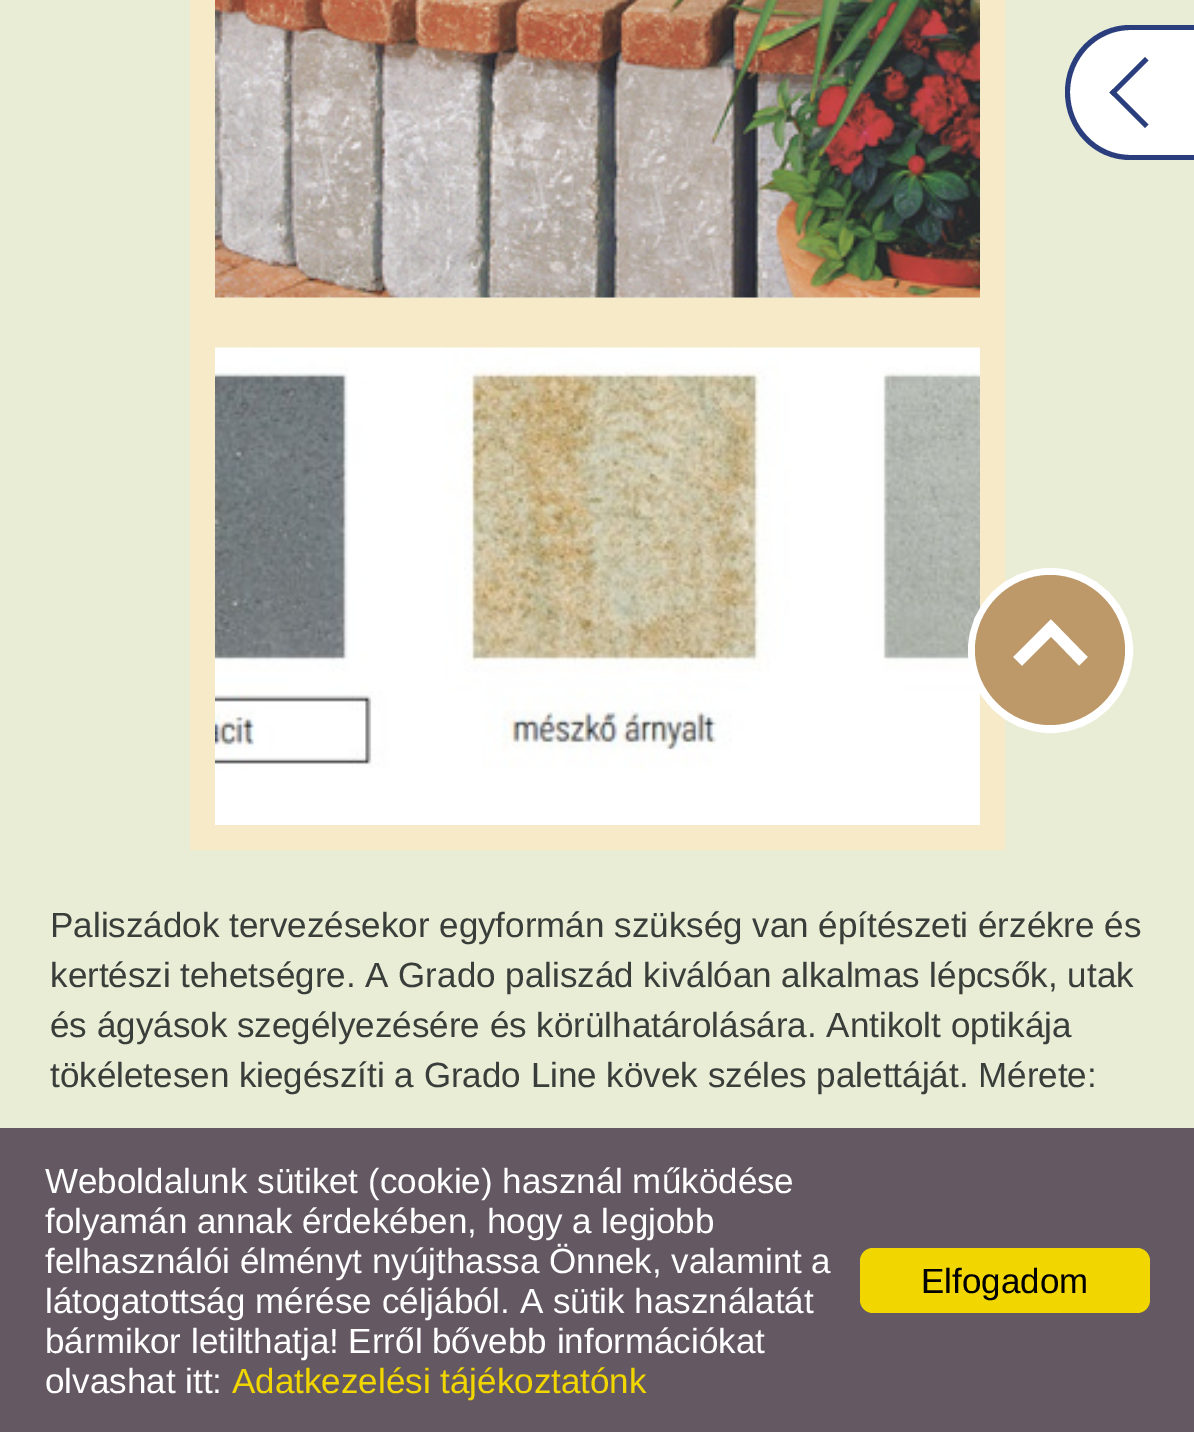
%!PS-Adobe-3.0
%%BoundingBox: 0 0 1194 1432
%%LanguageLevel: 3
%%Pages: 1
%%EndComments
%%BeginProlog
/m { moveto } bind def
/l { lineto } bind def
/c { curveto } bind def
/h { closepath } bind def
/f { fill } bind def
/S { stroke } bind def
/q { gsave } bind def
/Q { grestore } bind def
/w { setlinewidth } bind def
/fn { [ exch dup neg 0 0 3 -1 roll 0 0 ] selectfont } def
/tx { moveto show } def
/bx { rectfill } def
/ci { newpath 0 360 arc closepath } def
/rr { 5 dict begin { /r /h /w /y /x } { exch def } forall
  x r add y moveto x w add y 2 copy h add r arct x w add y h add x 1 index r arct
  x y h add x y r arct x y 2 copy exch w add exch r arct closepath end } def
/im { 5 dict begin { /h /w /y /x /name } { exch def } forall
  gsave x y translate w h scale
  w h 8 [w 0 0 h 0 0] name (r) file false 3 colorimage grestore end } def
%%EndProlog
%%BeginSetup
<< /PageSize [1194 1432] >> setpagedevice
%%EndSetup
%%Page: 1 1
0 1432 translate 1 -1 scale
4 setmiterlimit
0.914 0.929 0.839 setrgbcolor
0 0 1194 1432 bx
1 setgray
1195 160 m 1130 160 l 1094 160 1065 130 1065 92 c 1065 55 1094 25 1130 25 c 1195 25 l h f
0.165 0.239 0.486 setrgbcolor
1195 160 m 1130 160 l 1094 160 1065 130 1065 92 c 1065 55 1094 25 1130 25 c 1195 25 l h 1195 155 m 1130 155 l 1097 155 1070 127 1070 92 c 1070 58 1097 30 1130 30 c 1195 30 l h eofill
1145 128 m 1109.5 92.5 l 1113 89 l 1148.5 124.5 l h f
1113 96 m 1109.5 92.5 l 1145 57 l 1148.5 60.5 l h f
0.965 0.918 0.788 setrgbcolor
25 w
202.5 335.5 790 502 rectstroke
(image1.raw) 215 347 765 478 im
1 setgray
1050.5 650.5 78.5 ci q f Q
8 w
S
0.741 0.596 0.412 setrgbcolor
975 650 m 975 609 1009 575 1050 575 c 1091 575 1125 609 1125 650 c 1125 691 1091 725 1050 725 c 1009 725 975 691 975 650 c h 1088 657 m 1051 619 l 1013 657 l 1022 666 l 1051 637 l 1079 666 l h f
0.965 0.918 0.788 setrgbcolor
25 w
202.5 -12.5 790 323 rectstroke
(image0.raw) 215 0 765 298 im
/LiberationSans-Regular 35 fn
0.224 0.243 0.227 setrgbcolor
(Paliszádok tervezésekor egyformán szükség van építészeti érzékre és) 50 937 tx
(kertészi tehetségre. A Grado paliszád kiválóan alkalmas lépcsők, utak) 50 987 tx
(és ágyások szegélyezésére és körülhatárolására. Antikolt optikája) 50 1037 tx
(tökéletesen kiegészíti a Grado Line kövek széles palettáját. Mérete:) 50 1087 tx
0.392 0.345 0.384 setrgbcolor
0 1128 1194 304 bx
1 setgray
(Weboldalunk sütiket \(cookie\) használ működése) 45 1193 tx
(folyamán annak érdekében, hogy a legjobb) 45 1233 tx
(felhasználói élményt nyújthassa Önnek, valamint a) 45 1273 tx
(látogatottság mérése céljából. A sütik használatát) 45 1313 tx
(bármikor letilthatja! Erről bővebb információkat) 45 1353 tx
(olvashat itt:) 45 1393 tx
0.945 0.839 0 setrgbcolor
(Adatkezelési tájékoztatónk) 232 1393 tx
860 1248 290 65 13 rr f
0 setgray
(Elfogadom) 921 1293 tx
showpage
%%EOF
